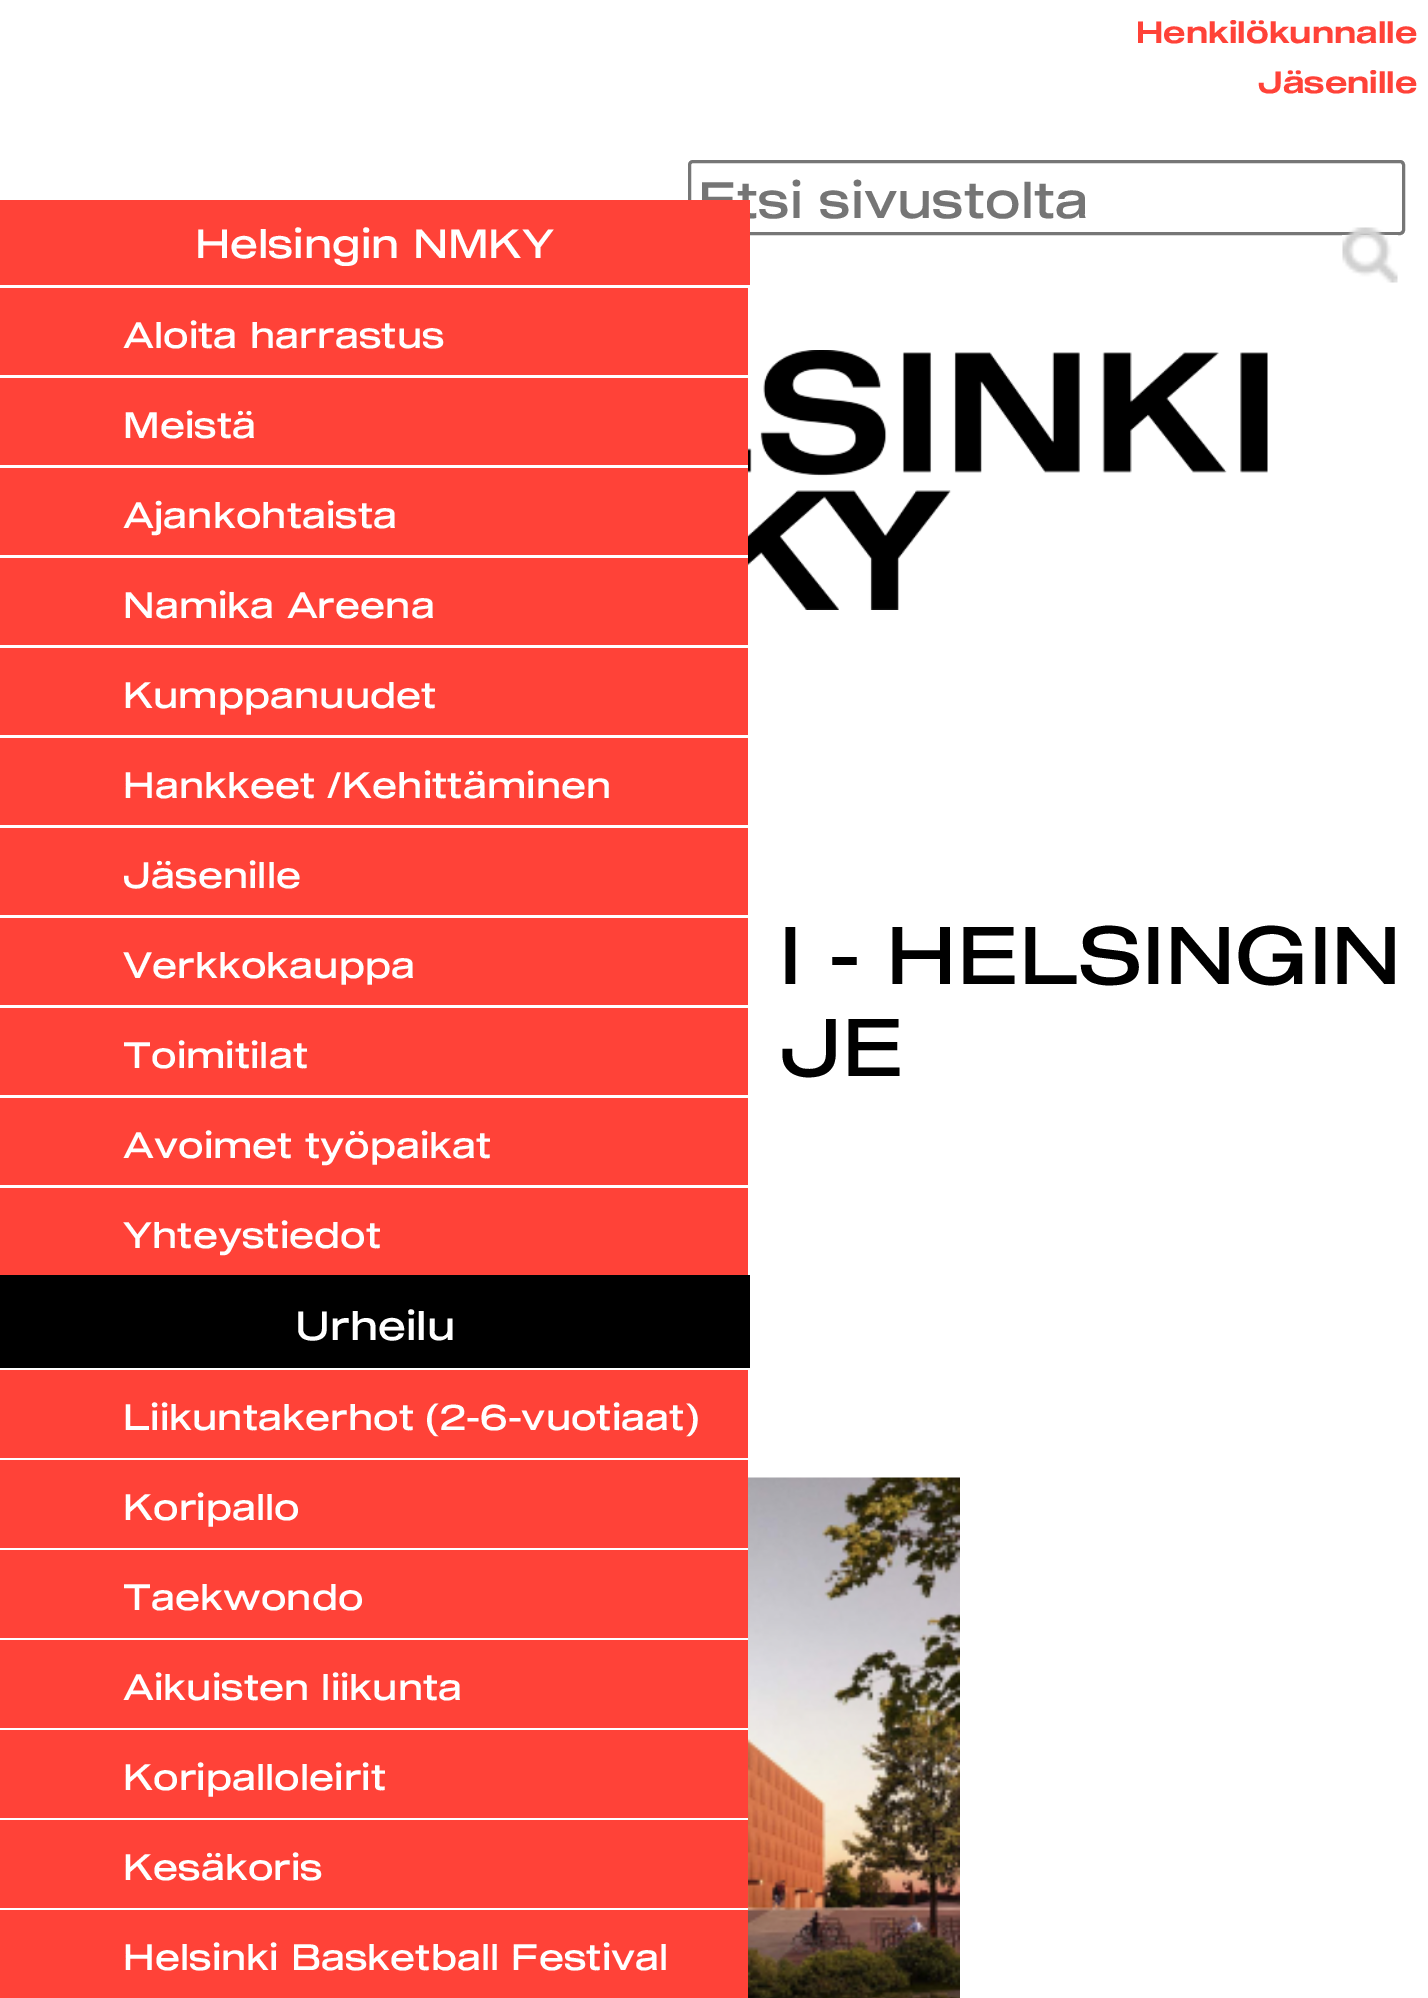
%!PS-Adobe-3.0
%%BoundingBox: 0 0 1428 1998
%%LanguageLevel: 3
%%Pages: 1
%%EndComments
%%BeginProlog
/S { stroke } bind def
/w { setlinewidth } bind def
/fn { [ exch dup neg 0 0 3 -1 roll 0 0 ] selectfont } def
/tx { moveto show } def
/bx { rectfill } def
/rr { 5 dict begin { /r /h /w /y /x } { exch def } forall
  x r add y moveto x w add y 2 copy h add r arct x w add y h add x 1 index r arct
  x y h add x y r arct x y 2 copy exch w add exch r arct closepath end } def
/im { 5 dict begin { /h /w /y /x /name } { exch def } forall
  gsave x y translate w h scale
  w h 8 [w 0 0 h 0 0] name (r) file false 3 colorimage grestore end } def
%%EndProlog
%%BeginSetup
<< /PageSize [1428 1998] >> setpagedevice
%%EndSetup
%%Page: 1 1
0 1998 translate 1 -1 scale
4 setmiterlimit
1 setgray
0 0 1428 1998 bx
/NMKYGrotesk-Medium 30 fn
1 0.259 0.22 setrgbcolor
(Henkilökunnalle) 1136 43 tx
(Jäsenille) 1258 93 tx
0.463 setgray
3 w
689.5 161.5 714 72 3.5 rr S
/NMKYGrotesk-Regular 50 fn
0.459 setgray
(Etsi sivustolta) 698 218 tx
(image0.raw) 1342 227 56 56 im
(image1.raw) 748 350 520 260 im
1 0.259 0.22 setrgbcolor
0 200 750 85 bx
/NMKYGrotesk-Regular 40 fn
1 setgray
(Helsingin NMKY) 195 258 tx
1 0.259 0.22 setrgbcolor
0 288 748 87 bx
/NMKYGrotesk-Regular 36 fn
1 setgray
(Aloita harrastus) 123 348 tx
1 0.259 0.22 setrgbcolor
0 378 748 87 bx
1 setgray
(Meistä) 123 438 tx
1 0.259 0.22 setrgbcolor
0 468 748 87 bx
1 setgray
(Ajankohtaista) 123 528 tx
1 0.259 0.22 setrgbcolor
0 558 748 87 bx
1 setgray
(Namika Areena) 123 618 tx
1 0.259 0.22 setrgbcolor
0 648 748 87 bx
1 setgray
(Kumppanuudet) 123 708 tx
1 0.259 0.22 setrgbcolor
0 738 748 87 bx
1 setgray
(Hankkeet /Kehittäminen) 123 798 tx
1 0.259 0.22 setrgbcolor
0 828 748 87 bx
1 setgray
(Jäsenille) 123 888 tx
1 0.259 0.22 setrgbcolor
0 918 748 87 bx
1 setgray
(Verkkokauppa) 123 978 tx
1 0.259 0.22 setrgbcolor
0 1008 748 87 bx
1 setgray
(Toimitilat) 123 1068 tx
1 0.259 0.22 setrgbcolor
0 1098 748 87 bx
1 setgray
(Avoimet työpaikat) 123 1158 tx
1 0.259 0.22 setrgbcolor
0 1188 748 87 bx
1 setgray
(Yhteystiedot) 123 1248 tx
0 setgray
0 1275 750 93 bx
/NMKYGrotesk-Regular 40 fn
1 setgray
(Urheilu) 295 1340 tx
1 0.259 0.22 setrgbcolor
0 1370 748 88 bx
/NMKYGrotesk-Regular 36 fn
1 setgray
(Liikuntakerhot \(2-6-vuotiaat\)) 123 1430 tx
1 0.259 0.22 setrgbcolor
0 1460 748 88 bx
1 setgray
(Koripallo) 123 1520 tx
1 0.259 0.22 setrgbcolor
0 1550 748 88 bx
1 setgray
(Taekwondo) 123 1610 tx
1 0.259 0.22 setrgbcolor
0 1640 748 88 bx
1 setgray
(Aikuisten liikunta) 123 1700 tx
1 0.259 0.22 setrgbcolor
0 1730 748 88 bx
1 setgray
(Koripalloleirit) 123 1790 tx
1 0.259 0.22 setrgbcolor
0 1820 748 88 bx
1 setgray
(Kesäkoris) 123 1880 tx
1 0.259 0.22 setrgbcolor
0 1910 748 88 bx
1 setgray
(Helsinki Basketball Festival) 123 1970 tx
/NMKYGrotesk-Regular 80 fn
0 setgray
(I - HELSINGIN) 779 984 tx
(JE) 780 1076 tx
(image2.raw) 748 1477 212 521 im
showpage
%%EOF
